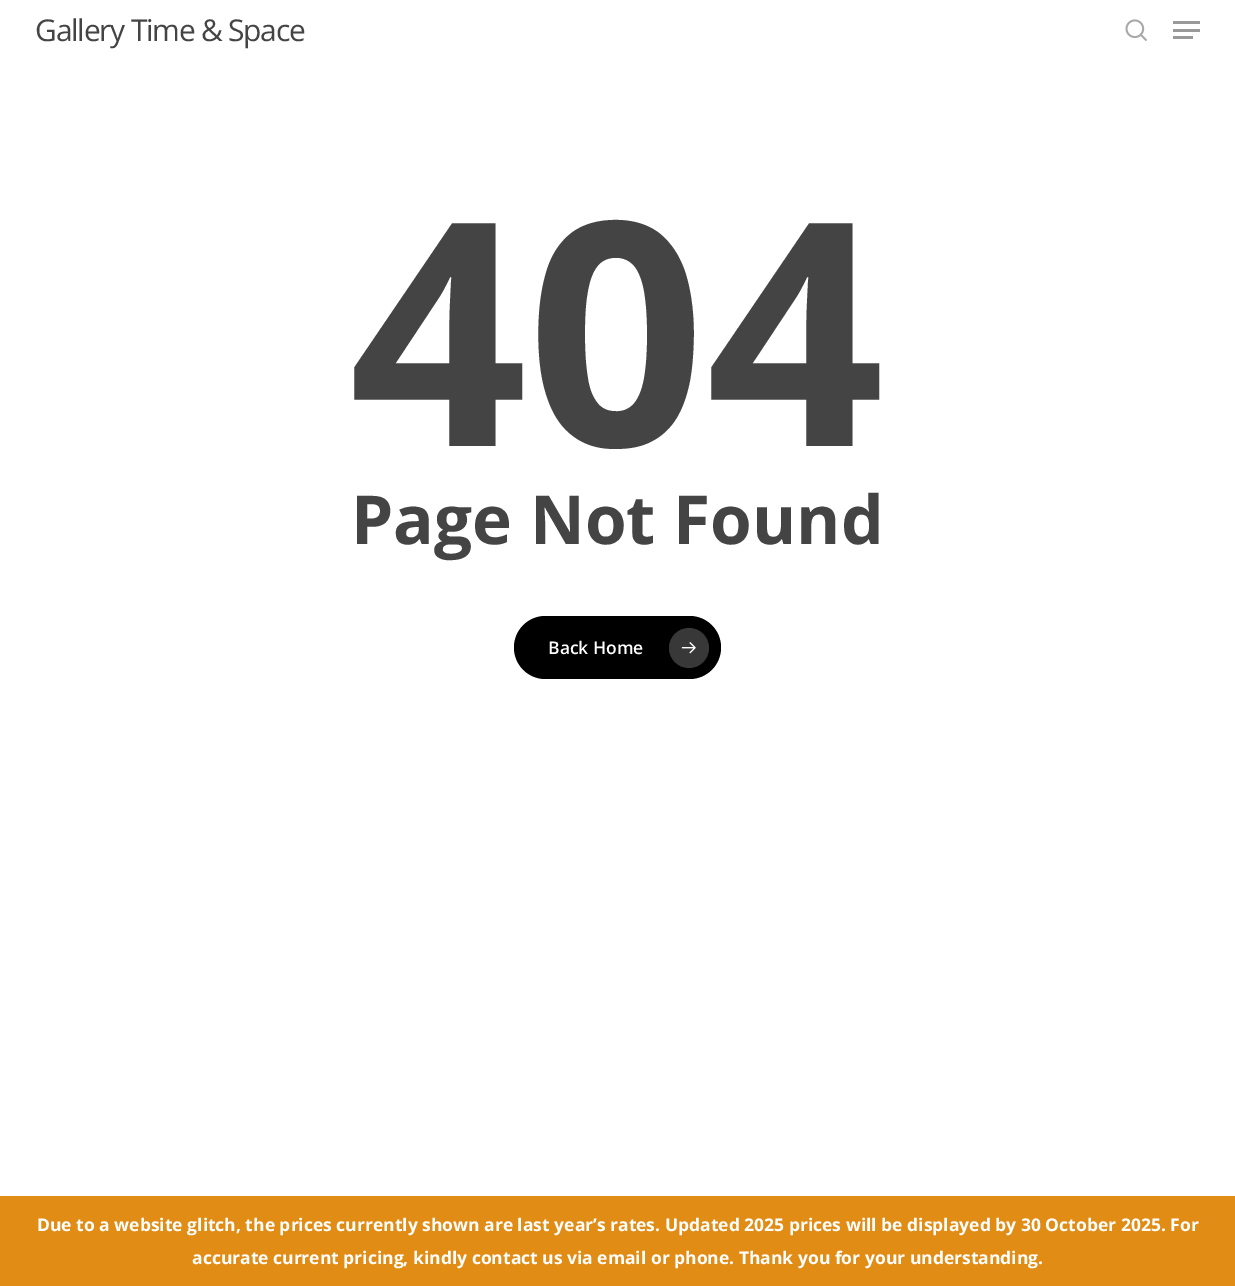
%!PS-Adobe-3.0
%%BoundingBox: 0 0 1235 1286
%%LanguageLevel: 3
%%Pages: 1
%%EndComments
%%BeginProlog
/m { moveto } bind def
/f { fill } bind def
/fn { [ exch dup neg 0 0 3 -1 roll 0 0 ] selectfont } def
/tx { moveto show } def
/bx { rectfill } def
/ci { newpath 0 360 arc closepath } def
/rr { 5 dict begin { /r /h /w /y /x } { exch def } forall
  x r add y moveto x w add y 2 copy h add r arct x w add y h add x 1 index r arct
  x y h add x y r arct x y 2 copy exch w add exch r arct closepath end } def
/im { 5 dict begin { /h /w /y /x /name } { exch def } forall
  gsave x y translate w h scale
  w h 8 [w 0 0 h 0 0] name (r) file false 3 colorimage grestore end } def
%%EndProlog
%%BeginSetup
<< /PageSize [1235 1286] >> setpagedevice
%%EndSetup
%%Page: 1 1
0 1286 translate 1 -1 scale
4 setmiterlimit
1 setgray
0 0 1235 1286 bx
/OpenSans-Regular 30 fn
0.267 setgray
35 41 m -1.25 0 (Gallery Time & Space) ashow
(image0.raw) 1125 19 22 22 im
0.6 setgray
1173 21 27 3 bx
1173 36 20 3 bx
1173 29 27 3 bx
/OpenSans-Bold 312 fn
0.267 setgray
(404) 349 446 tx
/OpenSans-Bold 67.5 fn
(Page Not Found) 351 544 tx
0 setgray
514 616 207 63 31.5 rr f
/OpenSans-SemiBold 17.5 fn
1 setgray
(Back Home) 548 654 tx
0.22 setgray
689 648 20 ci f
(image1.raw) 681 642 15 12 im
0.882 0.549 0.078 setrgbcolor
0 1196 1235 90 bx
/OpenSans-Bold 17.5 fn
1 setgray
(Due to a website glitch, the prices currently shown are last year’s rates. Updated 2025 prices will be displayed by 30 October 2025. For) 37 1231 tx
(accurate current pricing, kindly contact us via email or phone. Thank you for your understanding.) 192 1264 tx
showpage
%%EOF
